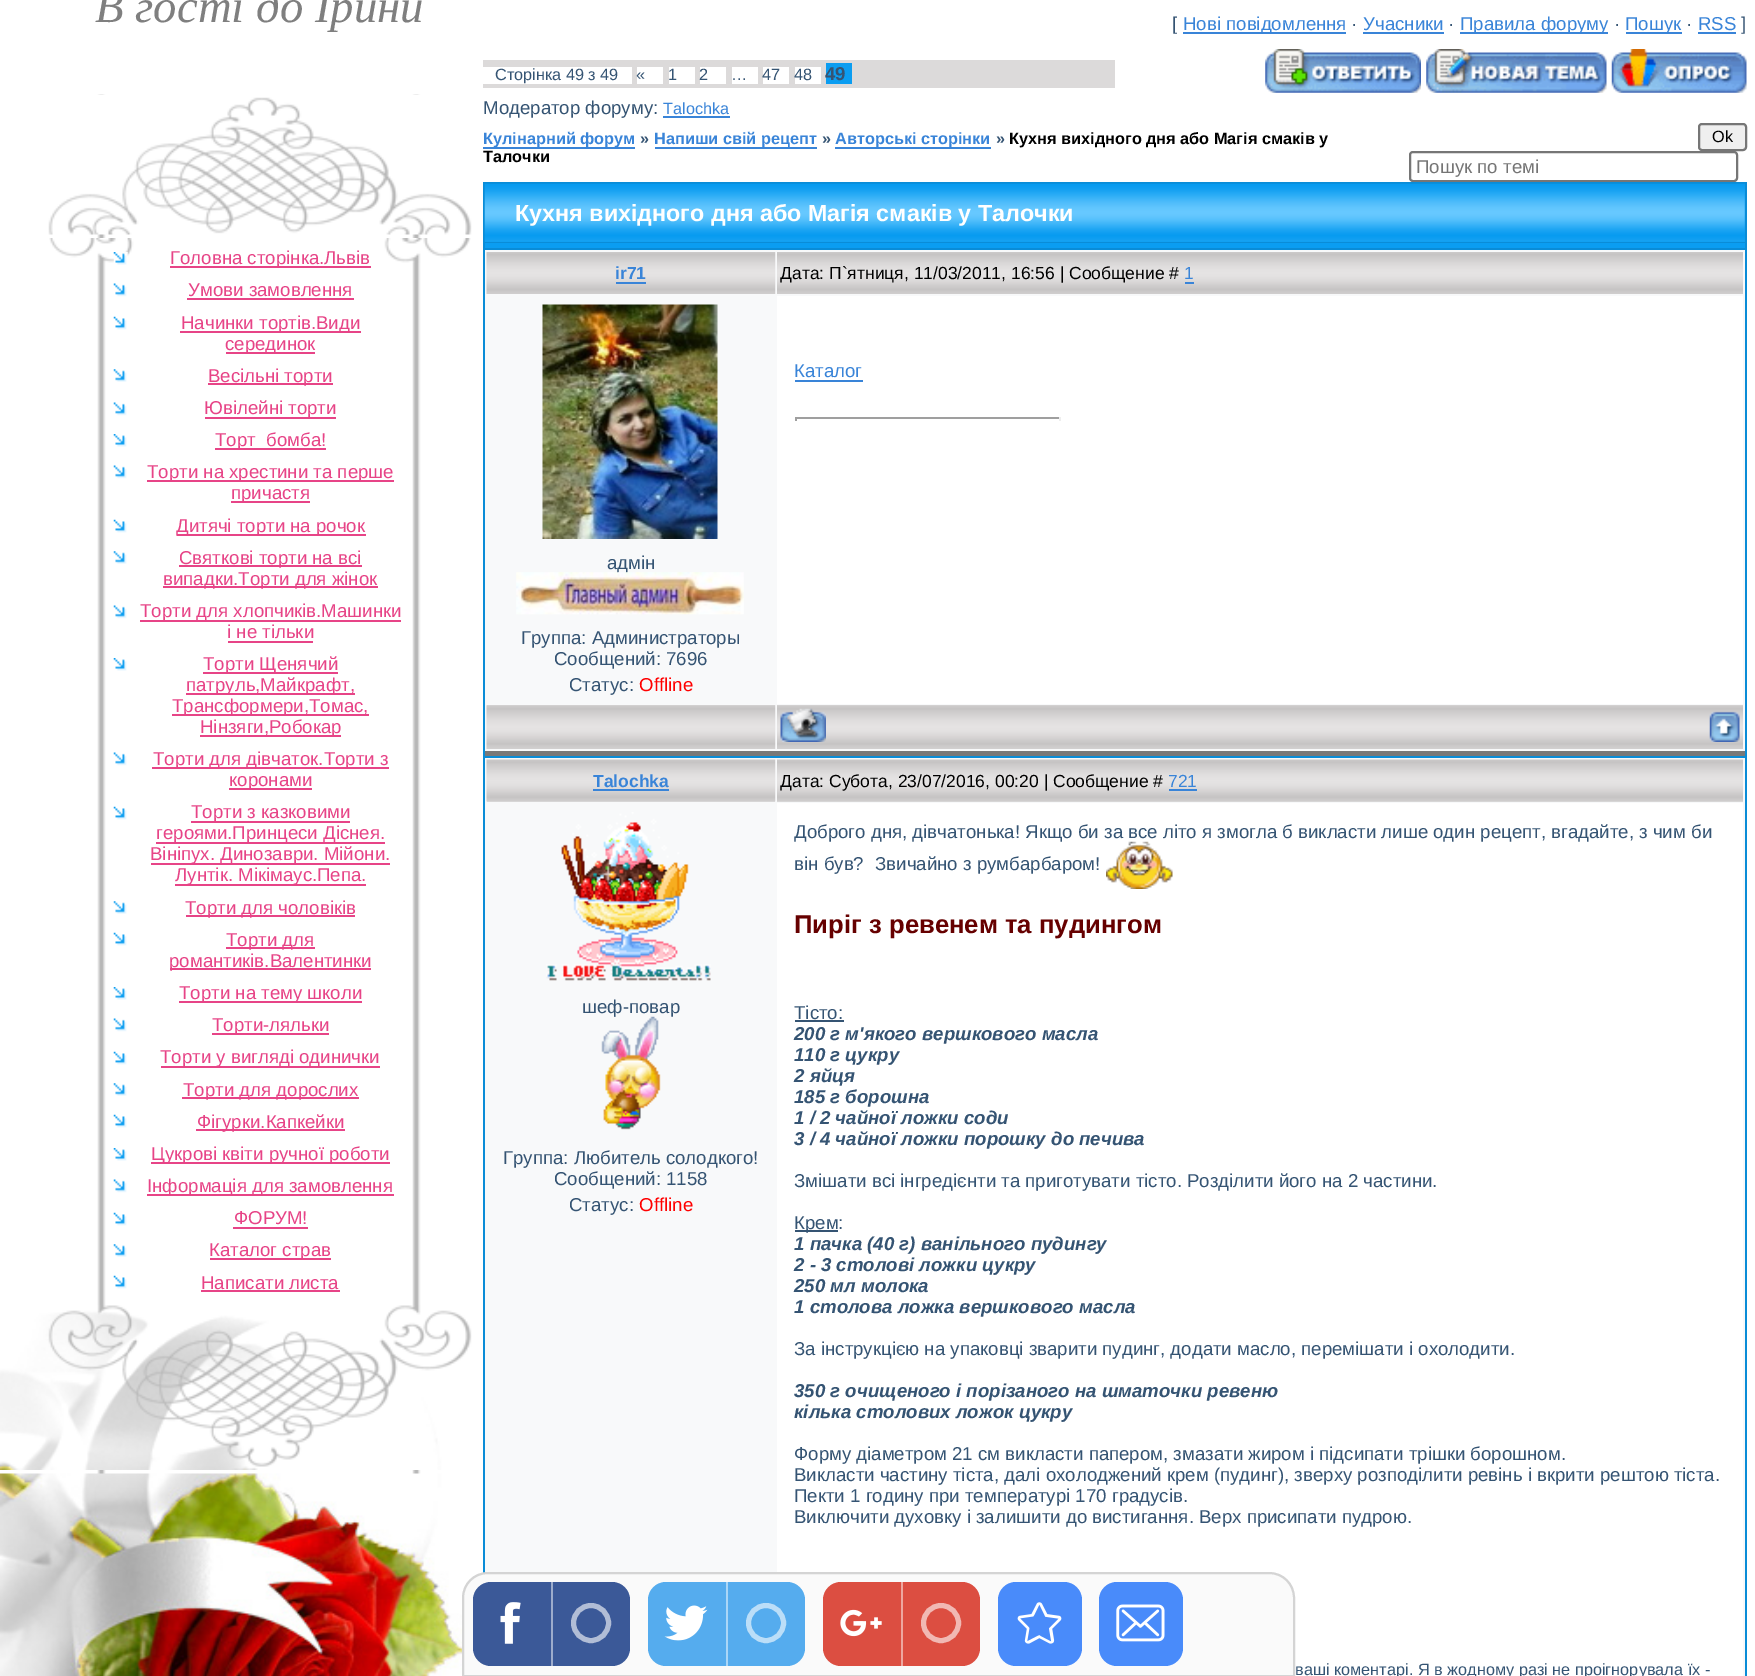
%!PS-Adobe-3.0
%%BoundingBox: 0 0 1755 1676
%%LanguageLevel: 3
%%Pages: 1
%%EndComments
%%BeginProlog
/m { moveto } bind def
/l { lineto } bind def
/c { curveto } bind def
/h { closepath } bind def
/f { fill } bind def
/S { stroke } bind def
/q { gsave } bind def
/Q { grestore } bind def
/w { setlinewidth } bind def
/fn { [ exch dup neg 0 0 3 -1 roll 0 0 ] selectfont } def
/tx { moveto show } def
/bx { rectfill } def
/ci { newpath 0 360 arc closepath } def
/rr { 5 dict begin { /r /h /w /y /x } { exch def } forall
  x r add y moveto x w add y 2 copy h add r arct x w add y h add x 1 index r arct
  x y h add x y r arct x y 2 copy exch w add exch r arct closepath end } def
/im { 5 dict begin { /h /w /y /x /name } { exch def } forall
  gsave x y translate w h scale
  w h 8 [w 0 0 h 0 0] name (r) file false 3 colorimage grestore end } def
%%EndProlog
%%BeginSetup
<< /PageSize [1755 1676] >> setpagedevice
%%EndSetup
%%Page: 1 1
0 1676 translate 1 -1 scale
4 setmiterlimit
1 setgray
0 0 1755 1676 bx
/LiberationSerif-Italic 46.75 fn
0.498 setgray
(В гості до Ірини) 95 22 tx
(image0.raw) 97 94 324 1380 im
(image1.raw) 48 94 424 141 im
(image2.raw) 49 238 422 25 im
(image3.raw) 113 252 15 13 im
0.906 0.267 0.529 setrgbcolor
170 266 201 2 bx
/LiberationSans-Regular 18.65 fn
(Головна сторінка.Львів) 170 264 tx
(image4.raw) 113 283 14 14 im
(Умови замовлення) 188 296 tx
187 298 167 2 bx
(image5.raw) 113 316 14 14 im
180 331 181 2 bx
(Начинки тортів.Види) 181 329 tx
226 352 89 2 bx
(серединок) 225 350 tx
(image6.raw) 113 369 14 13 im
208 383 125 2 bx
(Весільні торти) 208 382 tx
(image4.raw) 113 402 14 14 im
205 417 131 2 bx
(Ювілейні торти) 204 414 tx
(image7.raw) 113 434 14 13 im
215 448 111 2 bx
(Торт_бомба!) 215 446 tx
(image4.raw) 113 465 14 14 im
147 480 247 2 bx
(Торти на хрестини та перше) 147 478 tx
231 501 79 2 bx
(причастя) 231 499 tx
(image5.raw) 113 519 14 14 im
177 534 189 2 bx
(Дитячі торти на рочок) 176 532 tx
(image6.raw) 113 551 14 13 im
179 565 183 2 bx
(Святкові торти на всі) 179 564 tx
163 586 215 2 bx
(випадки.Торти для жінок) 163 585 tx
(image4.raw) 113 605 14 14 im
140 620 261 2 bx
(Торти для хлопчиків.Машинки) 140 617 tx
(і не тільки) 227 638 tx
228 641 85 2 bx
(image7.raw) 113 658 14 13 im
203 672 135 2 bx
(Торти Щенячий) 203 670 tx
186 693 169 2 bx
(патруль,Майкрафт,) 186 691 tx
172 714 197 2 bx
(Трансформери,Томас,) 172 712 tx
200 735 141 2 bx
(Нінзяги,Робокар) 200 733 tx
(image4.raw) 113 752 14 14 im
152 767 237 2 bx
(Торти для дівчаток.Торти з) 153 765 tx
229 788 83 2 bx
(коронами) 229 786 tx
(image5.raw) 113 806 14 14 im
191 821 159 2 bx
(Торти з казковими) 191 818 tx
156 842 229 2 bx
(героями.Принцеси Діснея.) 156 839 tx
151 863 239 2 bx
(Вініпух. Динозаври. Мійони.) 150 860 tx
175 884 191 2 bx
(Лунтік. Мікімаус.Пепа.) 175 881 tx
(image6.raw) 113 901 14 13 im
186 915 169 2 bx
(Торти для чоловіків) 185 914 tx
(image5.raw) 113 932 14 14 im
226 947 89 2 bx
(Торти для) 226 946 tx
170 968 201 2 bx
(романтиків.Валентинки) 169 967 tx
(image7.raw) 113 987 14 13 im
179 1001 183 2 bx
(Торти на тему школи) 179 999 tx
(image4.raw) 113 1018 14 14 im
212 1033 117 2 bx
(Торти-ляльки) 212 1031 tx
(image5.raw) 113 1051 14 14 im
161 1066 219 2 bx
(Торти у вигляді одинички) 160 1063 tx
(image6.raw) 113 1083 14 13 im
182 1097 177 2 bx
(Торти для дорослих) 183 1096 tx
(image5.raw) 113 1114 14 14 im
196 1129 149 2 bx
(Фігурки.Капкейки) 197 1128 tx
(image7.raw) 113 1148 14 13 im
151 1162 239 2 bx
(Цукрові квіти ручної роботи) 151 1160 tx
(image4.raw) 113 1179 14 14 im
147 1194 247 2 bx
(Інформація для замовлення) 147 1192 tx
(image5.raw) 113 1212 14 14 im
(ФОРУМ!) 234 1224 tx
233 1227 75 2 bx
(image6.raw) 113 1244 14 13 im
210 1258 121 2 bx
(Каталог страв) 209 1256 tx
(image5.raw) 113 1275 14 14 im
(Написати листа) 201 1289 tx
201 1290 139 2 bx
(image8.raw) 0 1305 472 165 im
(image9.raw) 0 1473 472 203 im
0.208 0.329 0.451 setrgbcolor
([) 1172 30 tx
0.224 0.518 0.847 setrgbcolor
1183 32 163 2 bx
(Нові повідомлення) 1183 30 tx
0.208 0.329 0.451 setrgbcolor
(·) 1351 30 tx
0.224 0.518 0.847 setrgbcolor
(Учасники) 1363 30 tx
1363 32 81 2 bx
0.208 0.329 0.451 setrgbcolor
(·) 1448 30 tx
0.224 0.518 0.847 setrgbcolor
1460 32 148 2 bx
(Правила форуму) 1460 30 tx
0.208 0.329 0.451 setrgbcolor
(·) 1614 30 tx
0.224 0.518 0.847 setrgbcolor
1626 32 56 2 bx
(Пошук) 1625 30 tx
0.208 0.329 0.451 setrgbcolor
(·) 1686 30 tx
0.224 0.518 0.847 setrgbcolor
(RSS) 1698 30 tx
1698 32 38 2 bx
0.208 0.329 0.451 setrgbcolor
(]) 1741 30 tx
0.863 0.855 0.855 setrgbcolor
483 60 632 28 bx
1 setgray
483 67 149 17 bx
/LiberationSans-Regular 16.3 fn
0.208 0.329 0.451 setrgbcolor
(Сторінка 49 з 49) 495 80 tx
1 setgray
637 67 26 17 bx
0.208 0.329 0.451 setrgbcolor
(«) 636 80 tx
1 setgray
669 67 26 17 bx
0.208 0.329 0.451 setrgbcolor
(1) 668 80 tx
1 setgray
700 67 26 17 bx
0.208 0.329 0.451 setrgbcolor
(2) 699 80 tx
1 setgray
732 67 26 17 bx
0.208 0.329 0.451 setrgbcolor
(…) 731 80 tx
1 setgray
763 67 26 17 bx
0.208 0.329 0.451 setrgbcolor
(47) 762 80 tx
1 setgray
795 67 26 17 bx
0.208 0.329 0.451 setrgbcolor
(48) 794 80 tx
0.043 0.616 0.945 setrgbcolor
826 63 26 21 bx
/LiberationSans-Bold 18.65 fn
0.208 0.329 0.451 setrgbcolor
(49) 825 80 tx
(image10.raw) 1265 49 156 44 im
(image11.raw) 1426 49 181 44 im
(image12.raw) 1611 49 136 44 im
/LiberationSans-Regular 18.65 fn
(Модератор форуму:) 483 114 tx
/LiberationSans-Regular 16.3 fn
0.224 0.518 0.847 setrgbcolor
(Talochka) 663 114 tx
663 116 67 2 bx
483 147 152 2 bx
/LiberationSans-Bold 16.3 fn
(Кулінарний форум) 483 144 tx
0.208 0.329 0.451 setrgbcolor
(») 640 144 tx
0.224 0.518 0.847 setrgbcolor
655 147 162 2 bx
(Напиши свій рецепт) 654 144 tx
0.208 0.329 0.451 setrgbcolor
(») 822 144 tx
0.224 0.518 0.847 setrgbcolor
835 147 156 2 bx
(Авторські сторінки) 835 144 tx
0.208 0.329 0.451 setrgbcolor
(») 996 144 tx
0 setgray
(Кухня вихідного дня або Магія смаків у) 1009 144 tx
(Талочки) 483 162 tx
0.937 setgray
1699 124 47 26 3 rr q f Q
0.463 setgray
2 w
S
/LiberationSans-Regular 16.3 fn
0 setgray
(Ok) 1712 142 tx
0.463 setgray
1410 152 327 29 3 rr S
/LiberationSans-Regular 18.65 fn
0.459 setgray
(Пошук по темі) 1416 173 tx
0.039 0.549 0.843 setrgbcolor
483 182 1264 1494 bx
0.043 0.616 0.945 setrgbcolor
485 184 1260 58 bx
(image13.raw) 484 183 1261 59 im
/LiberationSans-Bold 23.3 fn
1 setgray
(Кухня вихідного дня або Магія смаків у Талочки) 515 221 tx
0.043 0.616 0.945 setrgbcolor
485 243 1260 5 bx
0.973 0.976 0.98 setrgbcolor
485 250 1260 501 bx
0.471 setgray
485 751 1260 5 bx
(image14.raw) 486 252 290 42 im
/LiberationSans-Bold 17.5 fn
0.224 0.518 0.847 setrgbcolor
(ir71) 615 279 tx
616 282 30 2 bx
(image15.raw) 777 252 966 42 im
/LiberationSans-Regular 17.5 fn
0 setgray
(Дата: П`ятниця, 11/03/2011, 16:56 | Сообщение #) 780 279 tx
0.224 0.518 0.847 setrgbcolor
(1) 1184 279 tx
1185 282 9 2 bx
1 setgray
777 296 966 408 bx
/LiberationSans-Regular 18.65 fn
0.224 0.518 0.847 setrgbcolor
(Каталог) 794 377 tx
795 380 68 2 bx
0.624 setgray
795 417 266 2 bx
0.933 setgray
1059 417 2 4 bx
0.624 setgray
795 417 2 4 bx
(image16.raw) 542 304 176 235 im
0.208 0.329 0.451 setrgbcolor
(адмін) 607 569 tx
(image17.raw) 516 572 228 43 im
(Группа: Администраторы) 521 644 tx
(Сообщений: 7696) 554 665 tx
(Статус:) 569 691 tx
1 0 0 setrgbcolor
(Offline) 639 691 tx
(image18.raw) 486 705 290 44 im
(image19.raw) 777 705 966 44 im
(image20.raw) 780 708 46 34 im
(image21.raw) 1709 711 31 31 im
0.973 0.976 0.98 setrgbcolor
485 758 1260 918 bx
0.878 setgray
487 801 288 1 bx
(image22.raw) 486 759 290 43 im
/LiberationSans-Bold 17.5 fn
0.224 0.518 0.847 setrgbcolor
(Talochka) 593 787 tx
593 789 76 2 bx
0.878 setgray
777 801 966 1 bx
(image23.raw) 777 759 966 43 im
/LiberationSans-Regular 17.5 fn
0 setgray
(Дата: Субота, 23/07/2016, 00:20 | Сообщение #) 780 787 tx
0.224 0.518 0.847 setrgbcolor
(721) 1168 787 tx
1169 789 28 2 bx
(image24.raw) 546 812 165 169 im
/LiberationSans-Regular 18.65 fn
0.208 0.329 0.451 setrgbcolor
(шеф-повар) 582 1013 tx
(image25.raw) 601 1016 60 114 im
(Группа: Любитель солодкого!) 503 1164 tx
(Сообщений: 1158) 554 1185 tx
(Статус:) 569 1211 tx
1 0 0 setrgbcolor
(Offline) 639 1211 tx
1 setgray
777 803 966 873 bx
0.208 0.329 0.451 setrgbcolor
(Доброго дня, дівчатонька! Якщо би за все літо я змогла б викласти лише один рецепт, вгадайте, з чим би) 794 838 tx
(він був?) 794 870 tx
(Звичайно з румбарбаром!) 875 870 tx
(image26.raw) 1106 841 67 48 im
/LiberationSans-Bold 25.7 fn
0.4 0 0 setrgbcolor
(Пиріг з ревенем та пудингом) 794 933 tx
/LiberationSans-Regular 18.65 fn
0.208 0.329 0.451 setrgbcolor
(Тісто:) 794 1019 tx
795 1020 49 2 bx
/LiberationSans-BoldItalic 18.65 fn
(200 г м'якого вершкового масла) 794 1040 tx
(110 г цукру) 794 1061 tx
(2 яйця) 794 1082 tx
(185 г борошна) 794 1103 tx
(1 / 2 чайної ложки соди) 794 1124 tx
(3 / 4 чайної ложки порошку до печива) 794 1145 tx
/LiberationSans-Regular 18.65 fn
(Змішати всі інгредієнти та приготувати тісто. Розділити його на 2 частини.) 794 1187 tx
795 1230 43 2 bx
(Крем:) 794 1229 tx
/LiberationSans-BoldItalic 18.65 fn
(1 пачка \(40 г\) ванільного пудингу) 794 1250 tx
(2 - 3 столові ложки цукру) 794 1271 tx
(250 мл молока) 794 1292 tx
(1 столова ложка вершкового маслa) 794 1313 tx
/LiberationSans-Regular 18.65 fn
(За інструкцією на упаковці зварити пудинг, додати масло, перемішати і охолодити.) 794 1355 tx
/LiberationSans-BoldItalic 18.65 fn
(350 г очищеного і порізаного на шматочки ревеню) 794 1397 tx
(кілька столових ложок цукру) 794 1418 tx
/LiberationSans-Regular 18.65 fn
(Форму діаметром 21 см викласти папером, змазати жиром і підсипати трішки борошном.) 794 1460 tx
(Викласти частину тіста, далі охолоджений крем \(пудинг\), зверху розподілити ревінь і вкрити рештою тіста.) 794 1481 tx
(Пекти 1 годину при температурі 170 градусів.) 794 1502 tx
(Виключити духовку і залишити до вистигання. Верх присипати пудрою.) 794 1523 tx
/LiberationSans-Regular 16.3 fn
(ваші коментарі. Я в жодному разі не проігнорувала їх -) 1295 1675 tx
0.98 setgray
488 1573 m 1269 1573 l 1283 1573 1294 1584 1294 1598 c 1294 1676 l 463 1676 l 463 1598 l 463 1584 474 1573 488 1573 c h q f Q
0.831 setgray
S
0.231 0.349 0.596 setrgbcolor
473 1582 157 84 18 rr f
(image27.raw) 500 1602 21 42 im
0.616 0.675 0.8 setrgbcolor
551 1582 2 84 bx
0.694 0.741 0.839 setrgbcolor
5 w
591 1623 17.5 ci S
0.333 0.675 0.933 setrgbcolor
648 1582 157 84 18 rr f
(image28.raw) 664 1605 44 36 im
0.667 0.839 0.969 setrgbcolor
726 1582 2 84 bx
0.733 0.871 0.973 setrgbcolor
766 1623 17.5 ci S
0.863 0.306 0.255 setrgbcolor
823 1582 157 84 18 rr f
(image29.raw) 840 1609 42 28 im
0.933 0.655 0.627 setrgbcolor
901 1582 2 84 bx
0.945 0.722 0.702 setrgbcolor
941 1623 17.5 ci S
0.286 0.545 0.98 setrgbcolor
998 1582 84 84 18 rr f
(image30.raw) 1017 1602 45 42 im
1099 1582 84 84 18 rr f
(image31.raw) 1116 1604 49 38 im
showpage
%%EOF
